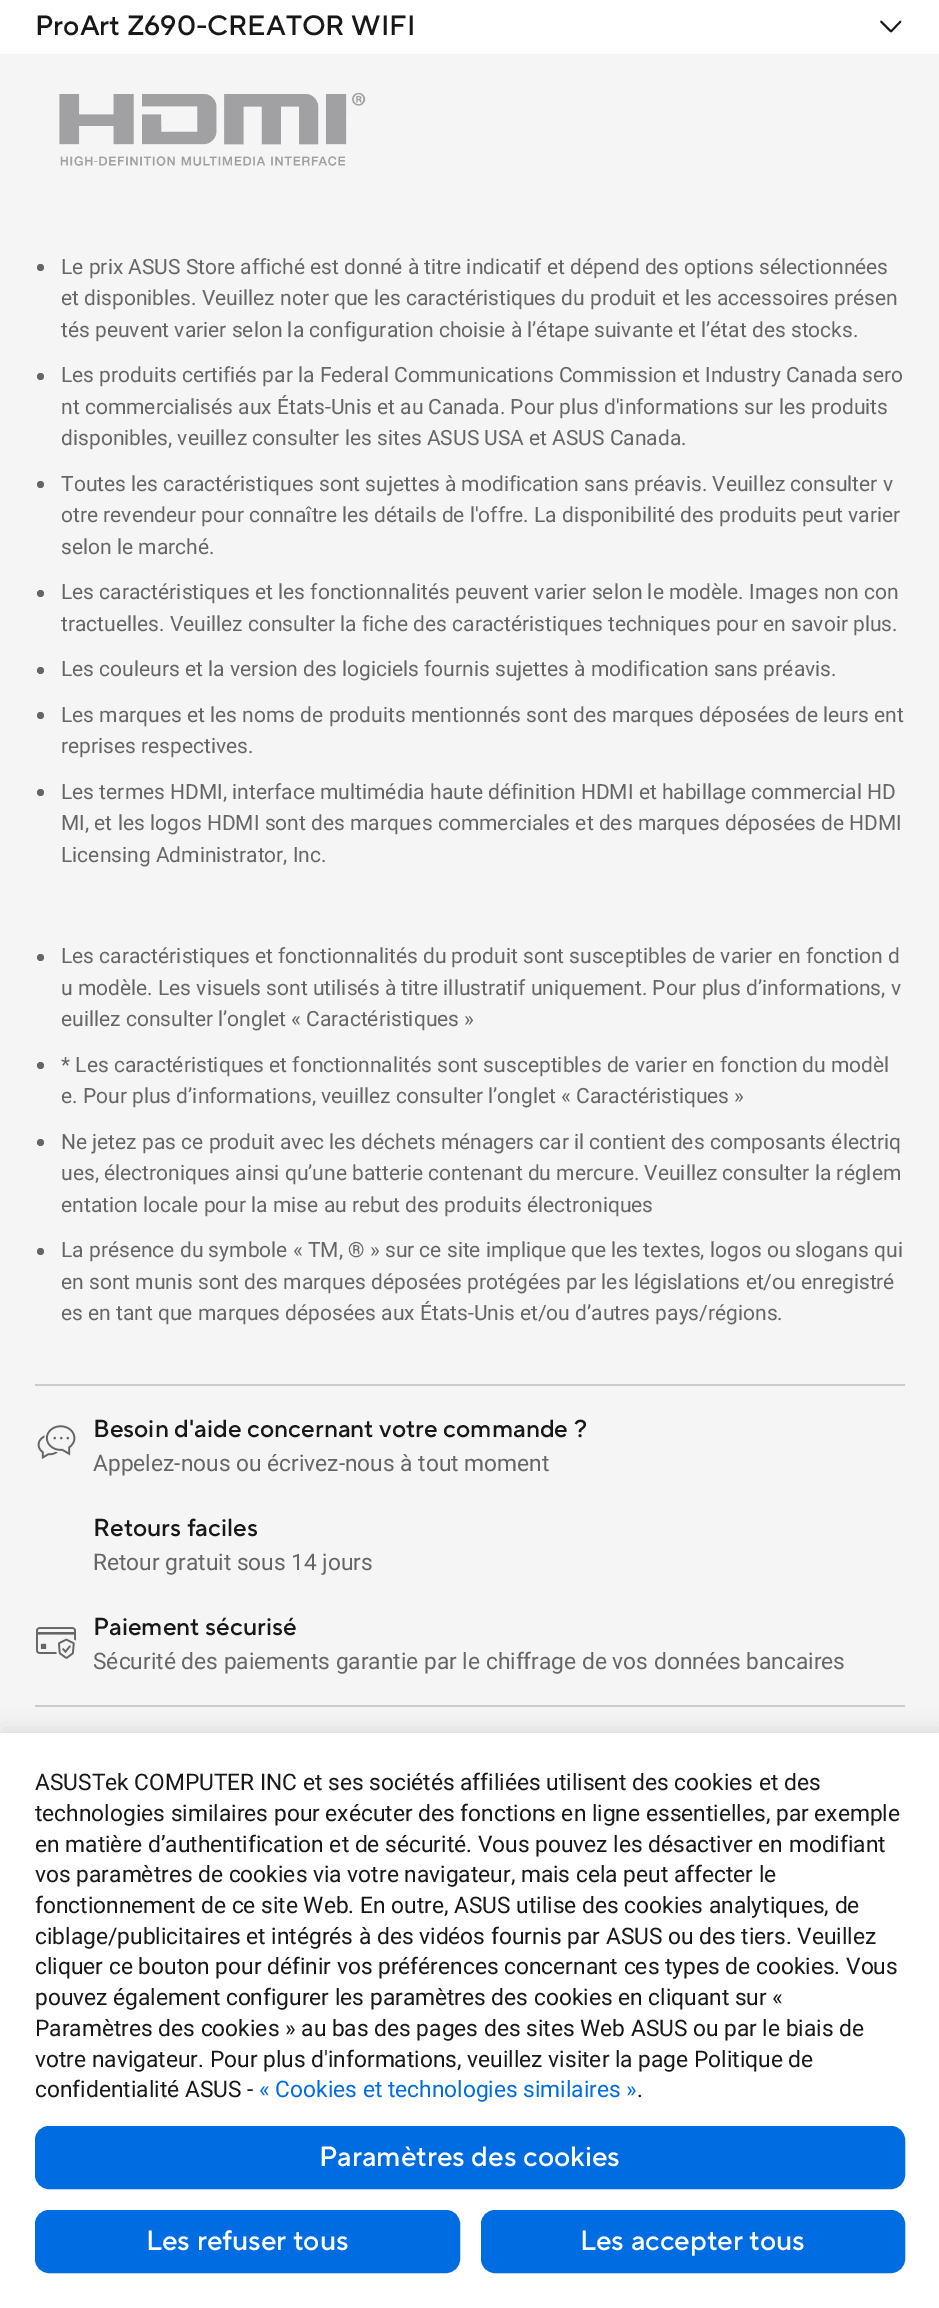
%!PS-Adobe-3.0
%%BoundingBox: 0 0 939 2308
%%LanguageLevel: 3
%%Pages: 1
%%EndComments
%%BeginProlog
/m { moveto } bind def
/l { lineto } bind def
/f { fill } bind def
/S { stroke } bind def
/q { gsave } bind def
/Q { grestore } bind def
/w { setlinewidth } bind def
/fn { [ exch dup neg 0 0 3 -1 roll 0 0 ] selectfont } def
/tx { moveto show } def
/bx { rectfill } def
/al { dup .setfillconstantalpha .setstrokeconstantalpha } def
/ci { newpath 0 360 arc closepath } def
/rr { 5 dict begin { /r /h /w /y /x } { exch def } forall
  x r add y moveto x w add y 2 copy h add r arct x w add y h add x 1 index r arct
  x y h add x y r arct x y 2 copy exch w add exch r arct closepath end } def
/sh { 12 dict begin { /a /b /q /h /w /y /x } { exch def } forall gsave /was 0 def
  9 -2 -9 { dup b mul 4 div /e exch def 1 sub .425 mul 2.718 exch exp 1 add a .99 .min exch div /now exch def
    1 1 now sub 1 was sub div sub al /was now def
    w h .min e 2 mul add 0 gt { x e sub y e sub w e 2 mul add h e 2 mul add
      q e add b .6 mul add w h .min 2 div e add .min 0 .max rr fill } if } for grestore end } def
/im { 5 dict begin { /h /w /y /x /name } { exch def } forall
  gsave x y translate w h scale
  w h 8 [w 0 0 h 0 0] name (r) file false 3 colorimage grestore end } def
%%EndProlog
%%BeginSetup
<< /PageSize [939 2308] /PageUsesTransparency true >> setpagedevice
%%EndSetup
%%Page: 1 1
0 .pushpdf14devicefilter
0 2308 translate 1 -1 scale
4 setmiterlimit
0.961 setgray
0 0 939 2308 bx
1 setgray
0 0 939 54 bx
/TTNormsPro-Medium 28 fn
0.094 setgray
(ProArt Z690-CREATOR WIFI) 35 35 tx
1.8 w
1 setlinecap
1 setlinejoin
881 21.5 m 891 31.5 l 900.5 21.5 l S
(image0.raw) 59 92 307 74 im
0.4 setgray
40.5 267.5 3.5 ci f
/Roboto-Regular 21 fn
(Le prix ASUS Store affiché est donné à titre indicatif et dépend des options sélectionnées) 61 274 tx
(et disponibles. Veuillez noter que les caractéristiques du produit et les accessoires présen) 61 305 tx
(tés peuvent varier selon la configuration choisie à l’étape suivante et l’état des stocks.) 61 337 tx
40.5 376.5 3.5 ci f
(Les produits certifiés par la Federal Communications Commission et Industry Canada sero) 61 382 tx
(nt commercialisés aux États-Unis et au Canada. Pour plus d'informations sur les produits) 61 414 tx
(disponibles, veuillez consulter les sites ASUS USA et ASUS Canada.) 61 445 tx
40.5 484.5 3.5 ci f
(Toutes les caractéristiques sont sujettes à modification sans préavis. Veuillez consulter v) 61 491 tx
(otre revendeur pour connaître les détails de l'offre. La disponibilité des produits peut varier) 61 522 tx
(selon le marché.) 61 554 tx
40.5 593.5 3.5 ci f
(Les caractéristiques et les fonctionnalités peuvent varier selon le modèle. Images non con) 61 599 tx
(tractuelles. Veuillez consulter la fiche des caractéristiques techniques pour en savoir plus.) 61 631 tx
40.5 670.5 3.5 ci f
(Les couleurs et la version des logiciels fournis sujettes à modification sans préavis.) 61 676 tx
40.5 715.5 3.5 ci f
(Les marques et les noms de produits mentionnés sont des marques déposées de leurs ent) 61 722 tx
(reprises respectives.) 61 753 tx
40.5 792.5 3.5 ci f
(Les termes HDMI, interface multimédia haute définition HDMI et habillage commercial HD) 61 799 tx
(MI, et les logos HDMI sont des marques commerciales et des marques déposées de HDMI) 61 830 tx
(Licensing Administrator, Inc.) 61 862 tx
40.5 957.5 3.5 ci f
(Les caractéristiques et fonctionnalités du produit sont susceptibles de varier en fonction d) 61 963 tx
(u modèle. Les visuels sont utilisés à titre illustratif uniquement. Pour plus d’informations, v) 61 995 tx
(euillez consulter l’onglet « Caractéristiques ») 61 1026 tx
40.5 1065.5 3.5 ci f
(* Les caractéristiques et fonctionnalités sont susceptibles de varier en fonction du modèl) 61 1072 tx
(e. Pour plus d’informations, veuillez consulter l’onglet « Caractéristiques ») 61 1103 tx
40.5 1142.5 3.5 ci f
(Ne jetez pas ce produit avec les déchets ménagers car il contient des composants électriq) 61 1149 tx
(ues, électroniques ainsi qu’une batterie contenant du mercure. Veuillez consulter la réglem) 61 1180 tx
(entation locale pour la mise au rebut des produits électroniques) 61 1212 tx
40.5 1251.5 3.5 ci f
(La présence du symbole « TM, ® » sur ce site implique que les textes, logos ou slogans qui) 61 1257 tx
(en sont munis sont des marques déposées protégées par les législations et/ou enregistré) 61 1289 tx
(es en tant que marques déposées aux États-Unis et/ou d’autres pays/régions.) 61 1320 tx
0.8 setgray
35 1384 870 2 bx
35 1705 870 2 bx
(image1.raw) 37 1425 39 34 im
/TTNormsPro-Medium 24.5 fn
0.094 setgray
(Besoin d'aide concernant votre commande ?) 93 1437 tx
/Roboto-Regular 22.75 fn
0.4 setgray
(Appelez-nous ou écrivez-nous à tout moment) 93 1471 tx
/TTNormsPro-Medium 24.5 fn
0.094 setgray
(Retours faciles) 93 1536 tx
/Roboto-Regular 22.75 fn
0.4 setgray
(Retour gratuit sous 14 jours) 93 1570 tx
(image2.raw) 36 1627 40 32 im
/TTNormsPro-Medium 24.5 fn
0.094 setgray
(Paiement sécurisé) 93 1635 tx
/Roboto-Regular 22.75 fn
0.4 setgray
(Sécurité des paiements garantie par le chiffrage de vos données bancaires) 93 1669 tx
0 setgray
2 1729 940 576 0 10.5 0.1 sh
1 setgray
0 1733 939 575 bx
0.094 setgray
(ASUSTek COMPUTER INC et ses sociétés affiliées utilisent des cookies et des) 35 1790 tx
(technologies similaires pour exécuter des fonctions en ligne essentielles, par exemple) 35 1821 tx
(en matière d’authentification et de sécurité. Vous pouvez les désactiver en modifiant) 35 1852 tx
(vos paramètres de cookies via votre navigateur, mais cela peut affecter le) 35 1882 tx
(fonctionnement de ce site Web. En outre, ASUS utilise des cookies analytiques, de) 35 1913 tx
(ciblage/publicitaires et intégrés à des vidéos fournis par ASUS ou des tiers. Veuillez) 35 1944 tx
(cliquer ce bouton pour définir vos préférences concernant ces types de cookies. Vous) 35 1974 tx
(pouvez également configurer les paramètres des cookies en cliquant sur «) 35 2005 tx
(Paramètres des cookies » au bas des pages des sites Web ASUS ou par le biais de) 35 2036 tx
(votre navigateur. Pour plus d'informations, veuillez visiter la page Politique de) 35 2067 tx
(confidentialité ASUS -) 35 2097 tx
0 0.424 0.882 setrgbcolor
(« Cookies et technologies similaires ») 259 2097 tx
0.094 setgray
(.) 637 2097 tx
0 0.424 0.882 setrgbcolor
37 2128 866 59 12 rr q f Q
4 w
0 setlinecap
0 setlinejoin
S
/TTNormsPro-Medium 28 fn
1 setgray
(Paramètres des cookies) 319 2166 tx
0 0.424 0.882 setrgbcolor
37 2212 421 59 12 rr q f Q
S
1 setgray
(Les refuser tous) 146 2250 tx
0 0.424 0.882 setrgbcolor
483 2212 420 59 12 rr q f Q
S
1 setgray
(Les accepter tous) 580 2250 tx
.poppdf14devicefilter showpage
%%EOF
